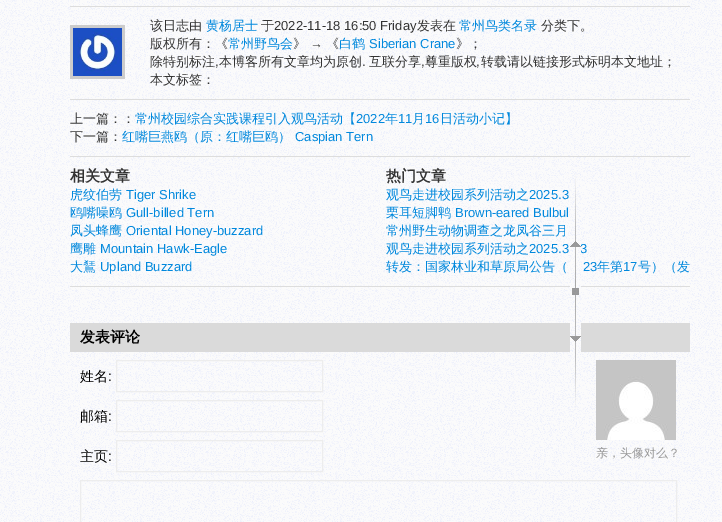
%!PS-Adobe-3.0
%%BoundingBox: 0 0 722 522
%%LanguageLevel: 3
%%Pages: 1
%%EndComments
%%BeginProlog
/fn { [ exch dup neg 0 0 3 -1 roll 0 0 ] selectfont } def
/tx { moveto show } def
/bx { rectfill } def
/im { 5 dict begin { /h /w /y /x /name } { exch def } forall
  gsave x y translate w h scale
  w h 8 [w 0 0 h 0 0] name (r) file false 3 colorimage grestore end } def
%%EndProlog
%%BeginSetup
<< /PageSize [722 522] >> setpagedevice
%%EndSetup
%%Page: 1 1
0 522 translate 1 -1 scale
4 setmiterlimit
1 setgray
0 0 722 522 bx
(image0.raw) 0 0 722 522 im
0.867 setgray
70 6 620 1 bx
70 99 620 1 bx
0.8 setgray
70 25 55 54 bx
(image1.raw) 73 28 49 48 im
/WenQuanYiZenHei-Medium 13 fn
0.2 setgray
(该日志由) 150 30 tx
0 0.533 0.867 setrgbcolor
(黄杨居士) 206 30 tx
0.2 setgray
(于) 261 30 tx
/LiberationSans-Regular 13 fn
(2022-11-18 16:50 Friday) 274 30 tx
/WenQuanYiZenHei-Medium 13 fn
(发表在) 417 30 tx
0 0.533 0.867 setrgbcolor
(常州鸟类名录) 459 30 tx
0.2 setgray
(分类下。) 541 30 tx
(版权所有：《) 150 48 tx
0 0.533 0.867 setrgbcolor
(常州野鸟会) 228 48 tx
0.2 setgray
(》) 293 48 tx
/LiberationSans-Regular 13 fn
(→) 310 48 tx
/WenQuanYiZenHei-Medium 13 fn
(《) 326 48 tx
0 0.533 0.867 setrgbcolor
(白鹤) 339 48 tx
/LiberationSans-Regular 13 fn
(Siberian Crane) 369 48 tx
/WenQuanYiZenHei-Medium 13 fn
0.2 setgray
(》；) 456 48 tx
(除特别标注 本博客所有文章均为原创) 150 66 tx
(互联分享 尊重版权 转载请以链接形式标明本文地址；) 369 66 tx
/LiberationSans-Regular 13 fn
(,) 215 66 tx
(.) 362 66 tx
(,) 421 66 tx
(,) 476 66 tx
/WenQuanYiZenHei-Medium 13 fn
(本文标签：) 150 84 tx
0.867 setgray
70 156 620 1 bx
0.2 setgray
(上一篇：：) 70 123 tx
0 0.533 0.867 setrgbcolor
(常州校园综合实践课程引入观鸟活动【) 135 123 tx
/LiberationSans-Regular 13 fn
(2022) 356 123 tx
/WenQuanYiZenHei-Medium 13 fn
(年) 385 123 tx
/LiberationSans-Regular 13 fn
(11) 398 123 tx
/WenQuanYiZenHei-Medium 13 fn
(月) 412 123 tx
/LiberationSans-Regular 13 fn
(16) 425 123 tx
/WenQuanYiZenHei-Medium 13 fn
(日活动小记】) 440 123 tx
0.2 setgray
(下一篇：) 70 141 tx
0 0.533 0.867 setrgbcolor
(红嘴巨燕鸥（原：红嘴巨鸥）) 122 141 tx
/LiberationSans-Regular 13 fn
(Caspian Tern) 295 141 tx
0.867 setgray
70 286 620 1 bx
/WenQuanYiZenHei-Bold 15 fn
0.2 setgray
(相关文章) 70 181 tx
/WenQuanYiZenHei-Medium 13 fn
0 0.533 0.867 setrgbcolor
(虎纹伯劳) 70 199 tx
/LiberationSans-Regular 13 fn
(Tiger Shrike) 126 199 tx
/WenQuanYiZenHei-Medium 13 fn
(鸥嘴噪鸥) 70 217 tx
/LiberationSans-Regular 13 fn
(Gull-billed Tern) 126 217 tx
/WenQuanYiZenHei-Medium 13 fn
(凤头蜂鹰) 70 235 tx
/LiberationSans-Regular 13 fn
(Oriental Honey-buzzard) 126 235 tx
/WenQuanYiZenHei-Medium 13 fn
(鹰雕) 70 253 tx
/LiberationSans-Regular 13 fn
(Mountain Hawk-Eagle) 100 253 tx
/WenQuanYiZenHei-Medium 13 fn
(大鵟) 70 271 tx
/LiberationSans-Regular 13 fn
(Upland Buzzard) 100 271 tx
/WenQuanYiZenHei-Bold 15 fn
0.2 setgray
(热门文章) 386 181 tx
/WenQuanYiZenHei-Medium 13 fn
0 0.533 0.867 setrgbcolor
(观鸟走进校园系列活动之) 386 199 tx
/LiberationSans-Regular 13 fn
(2025.3) 529 199 tx
/WenQuanYiZenHei-Medium 13 fn
(栗耳短脚鹎) 386 217 tx
/LiberationSans-Regular 13 fn
(Brown-eared Bulbul) 455 217 tx
/WenQuanYiZenHei-Medium 13 fn
(常州野生动物调查之龙凤谷三月) 386 235 tx
(观鸟走进校园系列活动之) 386 253 tx
/LiberationSans-Regular 13 fn
(2025.3) 529 253 tx
(3) 580 253 tx
/WenQuanYiZenHei-Medium 13 fn
(转发：国家林业和草原局公告（) 386 271 tx
/LiberationSans-Regular 13 fn
(23) 583 271 tx
/WenQuanYiZenHei-Medium 13 fn
(年第) 597 271 tx
/LiberationSans-Regular 13 fn
(17) 623 271 tx
/WenQuanYiZenHei-Medium 13 fn
(号）（发) 638 271 tx
0.855 setgray
70 323 620 29 bx
/WenQuanYiZenHei-Bold 15 fn
0 setgray
(发表评论) 80 342 tx
/WenQuanYiZenHei-Medium 14 fn
(姓名) 80 381 tx
/LiberationSans-Regular 14 fn
(:) 108 381 tx
0.929 setgray
116.5 360.5 206 31 rectstroke
/WenQuanYiZenHei-Medium 14 fn
0 setgray
(邮箱) 80 421 tx
/LiberationSans-Regular 14 fn
(:) 108 421 tx
0.929 setgray
116.5 400.5 206 31 rectstroke
/WenQuanYiZenHei-Medium 14 fn
0 setgray
(主页) 80 461 tx
/LiberationSans-Regular 14 fn
(:) 108 461 tx
0.929 setgray
116.5 440.5 206 31 rectstroke
(image2.raw) 596 360 80 80 im
/WenQuanYiZenHei-Medium 12 fn
0.6 setgray
(亲，头像对么？) 596 457 tx
0.929 setgray
80.5 480.5 596 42 rectstroke
(image3.raw) 570 172 11 93 im
(image4.raw) 570 265 11 53 im
(image5.raw) 570 318 11 93 im
showpage
%%EOF
